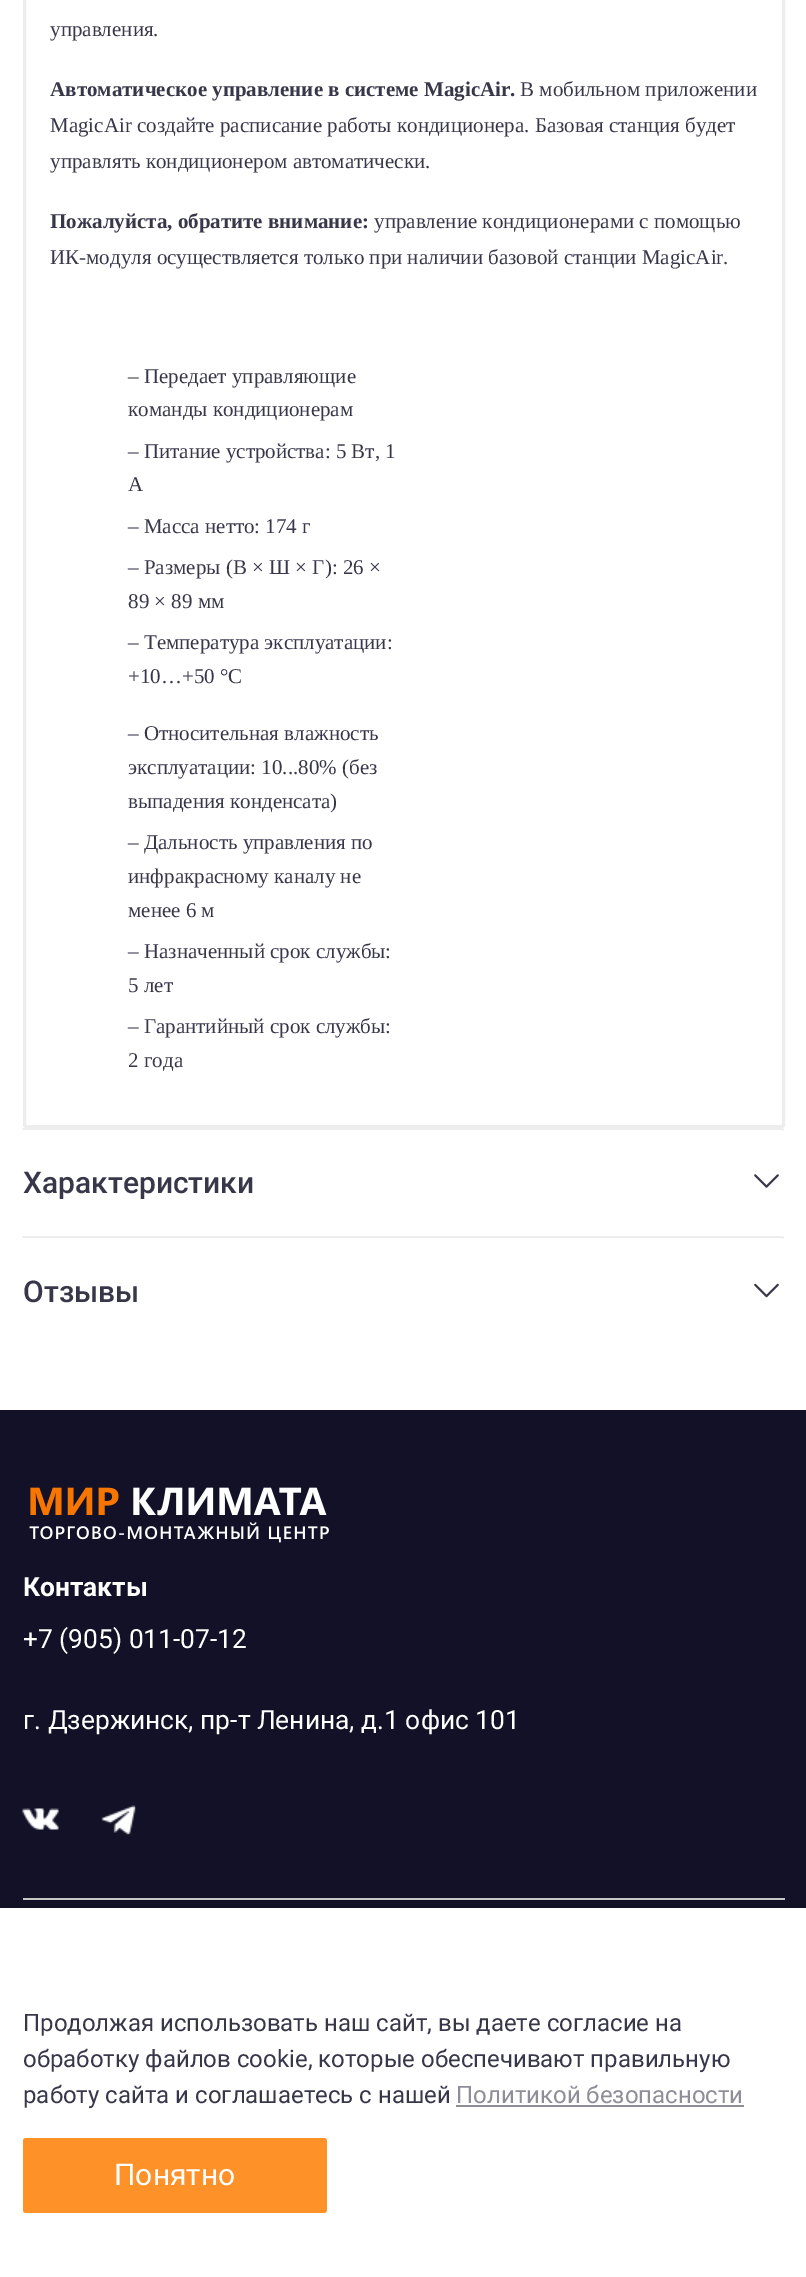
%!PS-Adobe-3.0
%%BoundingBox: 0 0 806 2277
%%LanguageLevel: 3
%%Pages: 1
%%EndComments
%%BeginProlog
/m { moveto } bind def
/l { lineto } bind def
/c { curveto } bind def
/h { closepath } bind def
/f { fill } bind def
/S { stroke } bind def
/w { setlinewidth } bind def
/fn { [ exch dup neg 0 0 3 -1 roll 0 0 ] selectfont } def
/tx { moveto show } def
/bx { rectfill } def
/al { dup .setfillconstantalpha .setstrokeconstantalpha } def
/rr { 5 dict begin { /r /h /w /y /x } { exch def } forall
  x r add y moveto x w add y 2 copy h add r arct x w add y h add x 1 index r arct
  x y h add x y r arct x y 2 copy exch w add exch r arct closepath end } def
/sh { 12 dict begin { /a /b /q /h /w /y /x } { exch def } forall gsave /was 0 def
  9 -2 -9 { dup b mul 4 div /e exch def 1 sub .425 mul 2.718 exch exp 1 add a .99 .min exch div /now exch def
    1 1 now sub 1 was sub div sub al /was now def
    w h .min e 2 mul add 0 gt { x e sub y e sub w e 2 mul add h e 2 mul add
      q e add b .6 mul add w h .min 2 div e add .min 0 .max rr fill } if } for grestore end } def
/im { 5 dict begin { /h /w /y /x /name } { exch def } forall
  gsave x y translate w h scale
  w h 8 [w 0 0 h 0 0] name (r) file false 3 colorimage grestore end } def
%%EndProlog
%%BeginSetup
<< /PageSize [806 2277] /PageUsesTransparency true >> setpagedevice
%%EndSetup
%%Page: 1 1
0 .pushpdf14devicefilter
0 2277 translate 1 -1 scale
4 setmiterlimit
1 setgray
0 0 806 2277 bx
0.929 setgray
3 w
24.5 -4.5 759 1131 1.5 rr S
/LiberationSerif-Regular 21 fn
0.22 0.216 0.29 setrgbcolor
(управления.) 50 36 tx
/LiberationSerif-Bold 21 fn
(Автоматическое управление в системе MagicAir.) 50 96 tx
/LiberationSerif-Regular 21 fn
(В мобильном приложении) 520 96 tx
(MagicAir создайте расписание работы кондиционера. Базовая станция будет) 50 132 tx
(управлять кондиционером автоматически.) 50 168 tx
/LiberationSerif-Bold 21 fn
(Пожалуйста, обратите внимание:) 50 228 tx
/LiberationSerif-Regular 21 fn
(управление кондиционерами с помощью) 374 228 tx
(ИК-модуля осуществляется только при наличии базовой станции MagicAir.) 50 264 tx
(– Передает управляющие) 128 383 tx
(команды кондиционерам) 128 416 tx
(– Питание устройства: 5 Вт, 1) 128 458 tx
(А) 128 491 tx
(– Масса нетто: 174 г) 128 533 tx
(– Размеры \(В × Ш × Г\): 26 ×) 128 574 tx
(89 × 89 мм) 128 608 tx
(– Температура эксплуатации:) 128 649 tx
(+10…+50 °С) 128 683 tx
(– Относительная влажность) 128 740 tx
(эксплуатации: 10...80% \(без) 128 774 tx
(выпадения конденсата\)) 128 808 tx
(– Дальность управления по) 128 849 tx
(инфракрасному каналу не) 128 883 tx
(менее 6 м) 128 917 tx
(– Назначенный срок службы:) 128 958 tx
(5 лет) 128 992 tx
(– Гарантийный срок службы:) 128 1033 tx
(2 года) 128 1067 tx
0.929 setgray
26 1128 m 25 1128 23 1128 22 1129 c 22 1130 l 782 1130 l 783 1130 784 1130 784 1131 c 784 1129 783 1128 782 1128 c h f
/Roboto-Medium 30 fn
0.22 0.216 0.29 setrgbcolor
(Характеристики) 23 1193 tx
(image0.raw) 754 1174 25 14 im
0.929 setgray
26 1236 m 25 1236 23 1236 22 1237 c 22 1238 l 782 1238 l 783 1238 784 1238 784 1239 c 784 1237 783 1236 782 1236 c h f
0.22 0.216 0.29 setrgbcolor
(Отзывы) 23 1302 tx
(image1.raw) 754 1283 25 15 im
0.071 0.067 0.153 setrgbcolor
0 1410 806 498 bx
(image2.raw) 29 1487 300 56 im
/Roboto-Bold 26.4 fn
1 setgray
(Контакты) 23 1596 tx
/Roboto-Regular 26.4 fn
(+7 \(905\) 011-07-12) 23 1648 tx
(г. Дзержинск, пр-т Ленина, д.1 офис 101) 23 1729 tx
(image3.raw) 22 1808 37 22 im
(image4.raw) 101 1805 35 30 im
0.8 setgray
23 1898 762 2 bx
0 setgray
-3 1904 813 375 0 17 0.09 sh
1 setgray
0 1908 806 369 bx
/Roboto-Regular 24 fn
0.22 0.216 0.29 setrgbcolor
(Продолжая использовать наш сайт, вы даете согласие на) 23 2031 tx
(обработку файлов cookie, которые обеспечивают правильную) 23 2067 tx
(работу сайта и соглашаетесь с нашей) 23 2103 tx
0.557 0.553 0.596 setrgbcolor
(Политикой безопасности) 456 2103 tx
456 2105 288 2 bx
1 0.569 0.161 setrgbcolor
23 2138 304 75 3 rr f
/Roboto-Regular 30 fn
1 setgray
(Понятно) 114 2185 tx
.poppdf14devicefilter showpage
%%EOF
